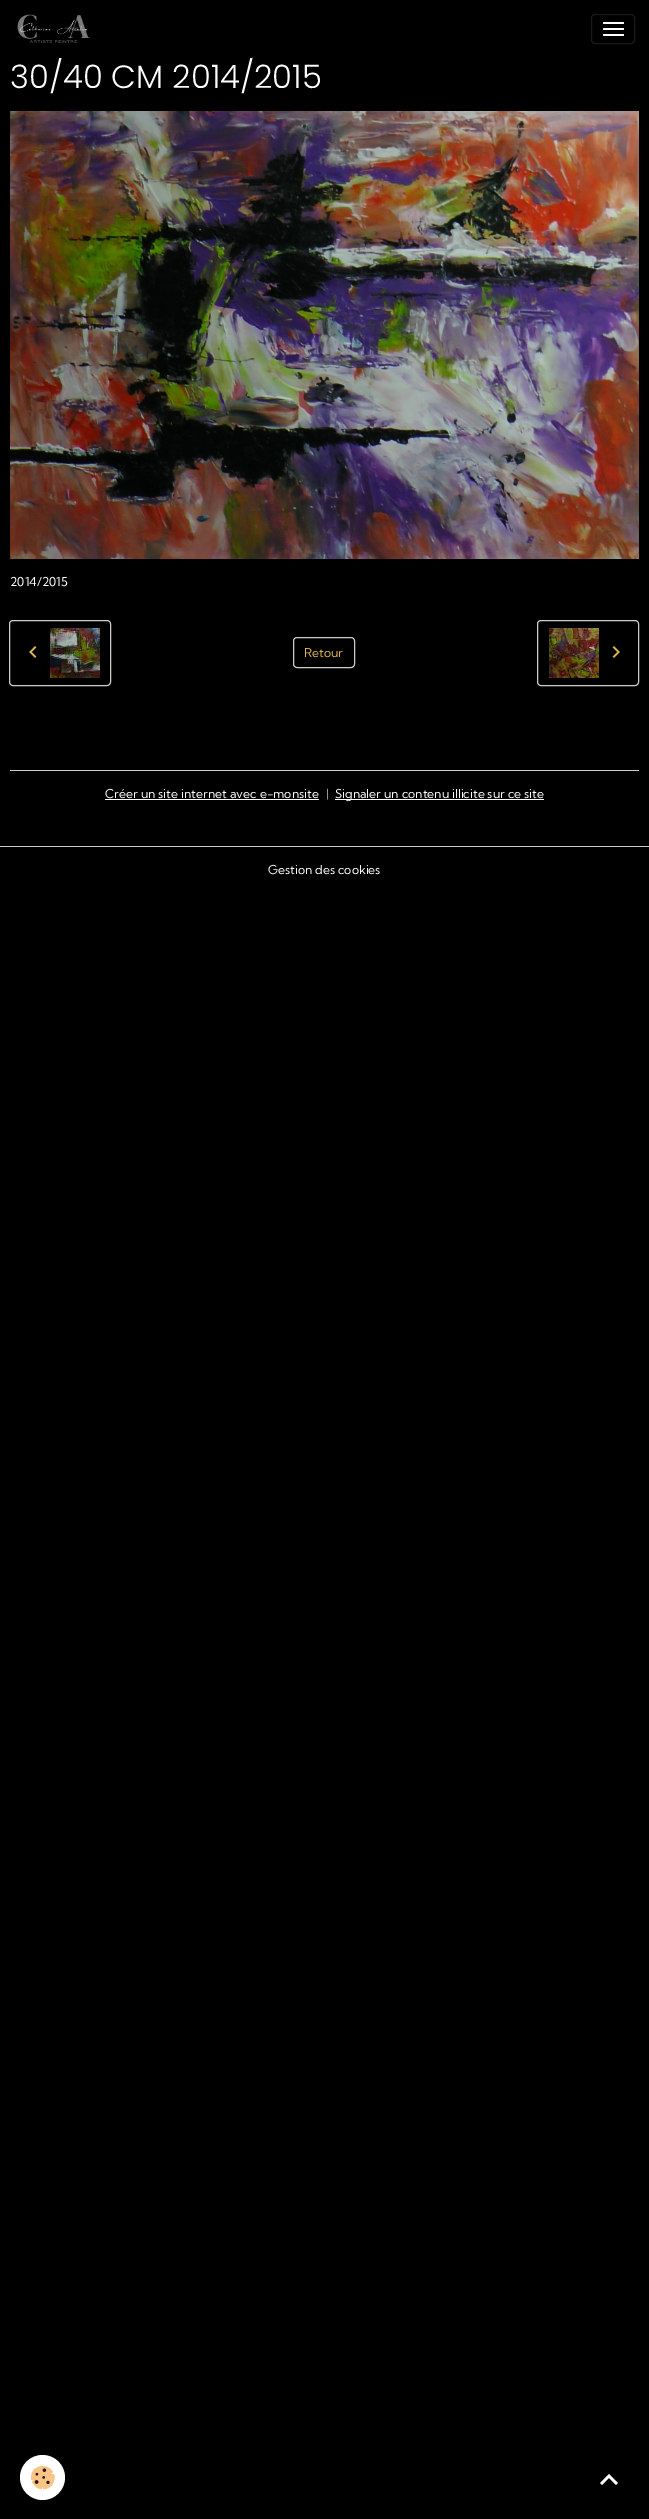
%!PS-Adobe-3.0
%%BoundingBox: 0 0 649 2519
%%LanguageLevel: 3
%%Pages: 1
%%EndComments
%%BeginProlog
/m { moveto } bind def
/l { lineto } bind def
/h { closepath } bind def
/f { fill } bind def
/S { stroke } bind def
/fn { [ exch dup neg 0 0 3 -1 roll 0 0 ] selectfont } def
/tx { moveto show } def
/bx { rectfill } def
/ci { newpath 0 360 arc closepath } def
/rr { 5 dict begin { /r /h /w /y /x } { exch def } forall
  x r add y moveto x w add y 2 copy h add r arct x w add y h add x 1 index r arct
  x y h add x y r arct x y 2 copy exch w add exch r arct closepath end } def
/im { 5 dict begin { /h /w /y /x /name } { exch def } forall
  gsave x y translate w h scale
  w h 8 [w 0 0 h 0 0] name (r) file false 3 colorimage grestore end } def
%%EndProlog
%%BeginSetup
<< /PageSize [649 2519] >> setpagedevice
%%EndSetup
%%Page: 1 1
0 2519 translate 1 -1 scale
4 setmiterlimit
0 setgray
0 0 649 2519 bx
/Poppins-Light 32.25 fn
1 setgray
(30/40 CM 2014/2015) 10 88 tx
0 setgray
58 57 194 1 bx
(image0.raw) 17 14 73 29 im
0.102 setgray
591.5 14.5 43 29 3.5 rr S
1 setgray
603 22 21 2 1 rr f
603 28 21 2 1 rr f
603 34 21 2 1 rr f
(image1.raw) 10 111 629 448 im
/KumbhSans-Regular 12.25 fn
(2014/2015) 10 586 tx
0.8 setgray
9.5 620.5 101 65 3.5 rr S
(image2.raw) 29 646 8 12 im
(image3.raw) 50 628 50 50 im
293.5 637.5 61 30 3.5 rr S
0.863 0.698 0.325 setrgbcolor
(Retour) 304 657 tx
0.8 setgray
537.5 620.5 101 65 3.5 rr S
(image4.raw) 549 628 50 50 im
(image5.raw) 612 646 8 12 im
10 770 629 1 bx
1 setgray
(Créer un site internet avec e-monsite) 105 798 tx
105 799 214 1 bx
0.8 setgray
(|) 326 798 tx
1 setgray
335 799 209 1 bx
(Signaler un contenu illicite sur ce site) 335 798 tx
0.8 setgray
0 846 649 1 bx
1 setgray
(Gestion des cookies) 268 874 tx
42.5 2477.5 22.5 ci f
(image6.raw) 30 2465 25 25 im
609 2474 m 618 2483 l 616 2485 l 609 2478 l 602 2485 l 600 2483 l h f
showpage
%%EOF
